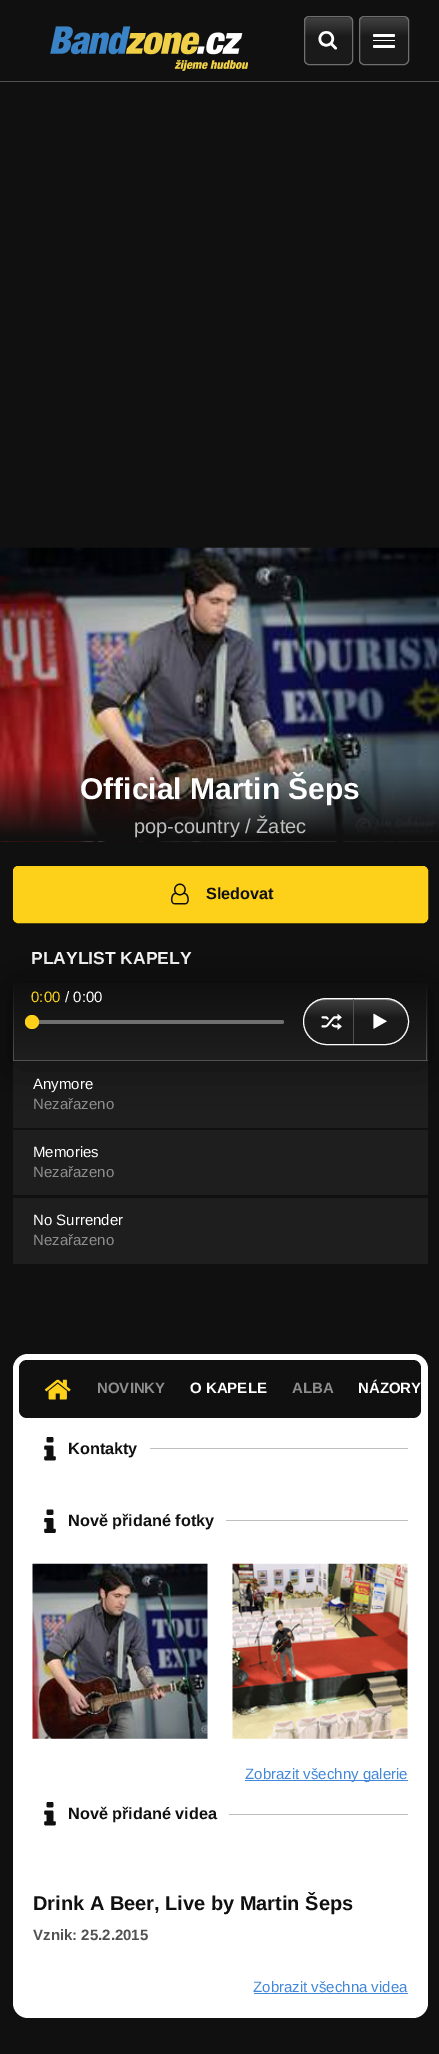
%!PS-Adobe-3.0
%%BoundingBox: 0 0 439 2054
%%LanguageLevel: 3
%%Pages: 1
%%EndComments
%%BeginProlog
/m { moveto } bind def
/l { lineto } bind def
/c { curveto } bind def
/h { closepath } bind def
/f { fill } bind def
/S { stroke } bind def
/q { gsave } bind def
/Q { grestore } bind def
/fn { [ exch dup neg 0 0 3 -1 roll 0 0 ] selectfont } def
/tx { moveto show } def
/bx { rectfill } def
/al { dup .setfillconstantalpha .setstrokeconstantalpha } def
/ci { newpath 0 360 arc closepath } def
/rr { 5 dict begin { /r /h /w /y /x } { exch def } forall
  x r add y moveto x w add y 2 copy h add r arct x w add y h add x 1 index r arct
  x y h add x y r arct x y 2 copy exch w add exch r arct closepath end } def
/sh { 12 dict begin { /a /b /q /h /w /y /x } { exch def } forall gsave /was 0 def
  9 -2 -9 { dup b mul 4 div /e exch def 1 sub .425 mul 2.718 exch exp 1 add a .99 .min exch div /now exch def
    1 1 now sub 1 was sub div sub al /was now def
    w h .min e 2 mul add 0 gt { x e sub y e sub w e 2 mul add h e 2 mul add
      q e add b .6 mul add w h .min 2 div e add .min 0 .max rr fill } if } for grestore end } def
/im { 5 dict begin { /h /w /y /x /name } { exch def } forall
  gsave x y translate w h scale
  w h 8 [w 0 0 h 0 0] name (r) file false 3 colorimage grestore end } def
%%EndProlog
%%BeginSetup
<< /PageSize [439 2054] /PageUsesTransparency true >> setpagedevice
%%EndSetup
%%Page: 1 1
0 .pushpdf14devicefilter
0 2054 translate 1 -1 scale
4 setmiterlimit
0.063 setgray
0 0 439 2054 bx
0.318 setgray
0 81 439 1 bx
(image0.raw) 50 26 198 45 im
q
304 16 49 49 5 rr clip newpath
q 304 16 m 353 16 l 353 18 l 304 18 l h clip newpath
<< /ShadingType 2 /ColorSpace /DeviceRGB /Coords [328 -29 328 18] /Extend [true true] /Function << /FunctionType 3 /Domain [0 1] /Functions [<< /FunctionType 2 /Domain [0 1] /C0 [0.259 0.259 0.259] /C1 [0.102 0.102 0.102] /N 1 >> << /FunctionType 2 /Domain [0 1] /C0 [0.102 0.102 0.102] /C1 [0.102 0.102 0.102] /N 1 >>] /Bounds [0.42] /Encode [0 1 0 1] >> >> shfill Q
q 304 18 m 353 18 l 353 64 l 304 64 l h clip newpath
<< /ShadingType 2 /ColorSpace /DeviceRGB /Coords [328 17 328 64] /Extend [true true] /Function << /FunctionType 3 /Domain [0 1] /Functions [<< /FunctionType 2 /Domain [0 1] /C0 [0.259 0.259 0.259] /C1 [0.102 0.102 0.102] /N 1 >> << /FunctionType 2 /Domain [0 1] /C0 [0.102 0.102 0.102] /C1 [0.102 0.102 0.102] /N 1 >>] /Bounds [0.42] /Encode [0 1 0 1] >> >> shfill Q
Q
0.435 setgray
304.5 16.5 48 48 4.5 rr S
(image1.raw) 318 31 19 19 im
q
359 16 50 49 5 rr clip newpath
q 359 16 m 409 16 l 409 18 l 359 18 l h clip newpath
<< /ShadingType 2 /ColorSpace /DeviceRGB /Coords [384 -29 384 18] /Extend [true true] /Function << /FunctionType 3 /Domain [0 1] /Functions [<< /FunctionType 2 /Domain [0 1] /C0 [0.259 0.259 0.259] /C1 [0.102 0.102 0.102] /N 1 >> << /FunctionType 2 /Domain [0 1] /C0 [0.102 0.102 0.102] /C1 [0.102 0.102 0.102] /N 1 >>] /Bounds [0.42] /Encode [0 1 0 1] >> >> shfill Q
q 359 18 m 409 18 l 409 64 l 359 64 l h clip newpath
<< /ShadingType 2 /ColorSpace /DeviceRGB /Coords [384 17 384 64] /Extend [true true] /Function << /FunctionType 3 /Domain [0 1] /Functions [<< /FunctionType 2 /Domain [0 1] /C0 [0.259 0.259 0.259] /C1 [0.102 0.102 0.102] /N 1 >> << /FunctionType 2 /Domain [0 1] /C0 [0.102 0.102 0.102] /C1 [0.102 0.102 0.102] /N 1 >>] /Bounds [0.42] /Encode [0 1 0 1] >> >> shfill Q
Q
359.5 16.5 49 48 4.5 rr S
1 setgray
373 34 22 3 1.5 rr f
373 40 22 1 0.5 rr f
373 45 22 3 1.5 rr f
(image2.raw) 0 547 439 295 im
/LiberationSans-Bold 30 fn
(Official Martin Šeps) 80 799 tx
/LiberationSans-Regular 20 fn
0.749 setgray
(pop-country / Žatec) 134 833 tx
0.992 0.82 0.098 setrgbcolor
13.5 866.5 414 56 4.5 rr q f Q
S
(image3.raw) 170 883 19 22 im
/LiberationSans-Bold 16.25 fn
0.063 setgray
(Sledovat) 206 899 tx
/LiberationSans-Bold 17.5 fn
1 setgray
(PLAYLIST KAPELY) 31 964 tx
0.118 setgray
13 1061 415 67 bx
13 1130 415 65 bx
0 setgray
13 988 415 78 0 25 0.5 sh
q 14 983 m 428 983 l 428 1060 l 14 1060 l h clip newpath
<< /ShadingType 2 /ColorSpace /DeviceRGB /Coords [220 983 220 1060] /Extend [true true] /Function << /FunctionType 2 /Domain [0 1] /C0 [0.063 0.063 0.063] /C1 [0.118 0.118 0.118] /N 1 >> >> shfill Q
0.318 setgray
13 1060 415 1 bx
q 13 983 m 14 983 l 14 1060 l 13 1060 l h clip newpath
<< /ShadingType 2 /ColorSpace /DeviceRGB /Coords [13 983 13 1060] /Extend [true true] /Function << /FunctionType 2 /Domain [0 1] /C0 [0.063 0.063 0.063] /C1 [0.318 0.318 0.318] /N 1 >> >> shfill Q
0.435 setgray
31 1020 253 4 2 rr f
/LiberationSans-Regular 15 fn
0.992 0.82 0.098 setrgbcolor
(0:00) 31 1002 tx
1 setgray
(/ 0:00) 65 1002 tx
0.992 0.82 0.098 setrgbcolor
32 1022 7 ci f
q
303 998 106 47 23.5 rr clip newpath
q 303 999 m 409 999 l 409 1044 l 303 1044 l h clip newpath
<< /ShadingType 2 /ColorSpace /DeviceRGB /Coords [356 999 356 1044] /Extend [true true] /Function << /FunctionType 3 /Domain [0 1] /Functions [<< /FunctionType 2 /Domain [0 1] /C0 [0.259 0.259 0.259] /C1 [0.102 0.102 0.102] /N 1 >> << /FunctionType 2 /Domain [0 1] /C0 [0.102 0.102 0.102] /C1 [0.102 0.102 0.102] /N 1 >>] /Bounds [0.42] /Encode [0 1 0 1] >> >> shfill Q
Q
0.25 al
1 setgray
326 1000 m 385 1000 l 392 1000 399 1003 404 1008 c 400 1003 393 999 386 999 c 326 999 l 321 999 317 1001 313 1004 c 317 1001 321 1000 326 1000 c h f
1 al
303.5 998.5 105 46 23 rr S
0.318 setgray
353 999 1 45 bx
(image4.raw) 321 1014 21 16 im
(image5.raw) 373 1013 14 16 im
q 426 983 m 427 983 l 427 1060 l 426 1060 l h clip newpath
<< /ShadingType 2 /ColorSpace /DeviceRGB /Coords [427 983 427 1060] /Extend [true true] /Function << /FunctionType 2 /Domain [0 1] /C0 [0.063 0.063 0.063] /C1 [0.318 0.318 0.318] /N 1 >> >> shfill Q
1 setgray
(Anymore) 33 1089 tx
0.553 setgray
(Nezařazeno) 33 1109 tx
1 setgray
(Memories) 33 1157 tx
0.553 setgray
(Nezařazeno) 33 1177 tx
0.118 setgray
13 1198 415 66 bx
1 setgray
(No Surrender) 33 1225 tx
0.553 setgray
(Nezařazeno) 33 1245 tx
1 setgray
13 1354 415 664 15 rr f
0.063 setgray
19 1360 402 58 8 rr f
(image6.raw) 44 1379 27 21 im
/LiberationSans-Bold 15 fn
0.553 setgray
(NOVINKY) 97 1393 tx
1 setgray
(O KAPELE) 190 1393 tx
0.553 setgray
(ALBA) 292 1393 tx
1 setgray
(NÁZORY) 358 1393 tx
(image7.raw) 44 1437 12 24 im
/LiberationSans-Bold 16.25 fn
0.063 setgray
(Kontakty) 68 1454 tx
0.749 setgray
150 1448 258 1 bx
(image8.raw) 44 1509 12 24 im
0.063 setgray
(Nově přidané fotky) 68 1526 tx
0.749 setgray
226 1520 182 1 bx
(image9.raw) 32 1563 176 176 im
(image10.raw) 232 1563 176 176 im
0.255 0.529 0.855 setrgbcolor
245 1780 163 1 bx
/LiberationSans-Regular 15 fn
(Zobrazit všechny galerie) 245 1779 tx
(image7.raw) 44 1802 12 24 im
/LiberationSans-Bold 16.25 fn
0.063 setgray
(Nově přidané videa) 68 1819 tx
0.749 setgray
229 1814 179 1 bx
/LiberationSans-Bold 20 fn
0.063 setgray
(Drink A Beer, Live by Martin Šeps) 33 1910 tx
/LiberationSans-Bold 15 fn
0.318 setgray
(Vznik: 25.2.2015) 33 1940 tx
/LiberationSans-Regular 15 fn
0.255 0.529 0.855 setrgbcolor
(Zobrazit všechna videa) 253 1992 tx
254 1993 154 1 bx
.poppdf14devicefilter showpage
%%EOF
